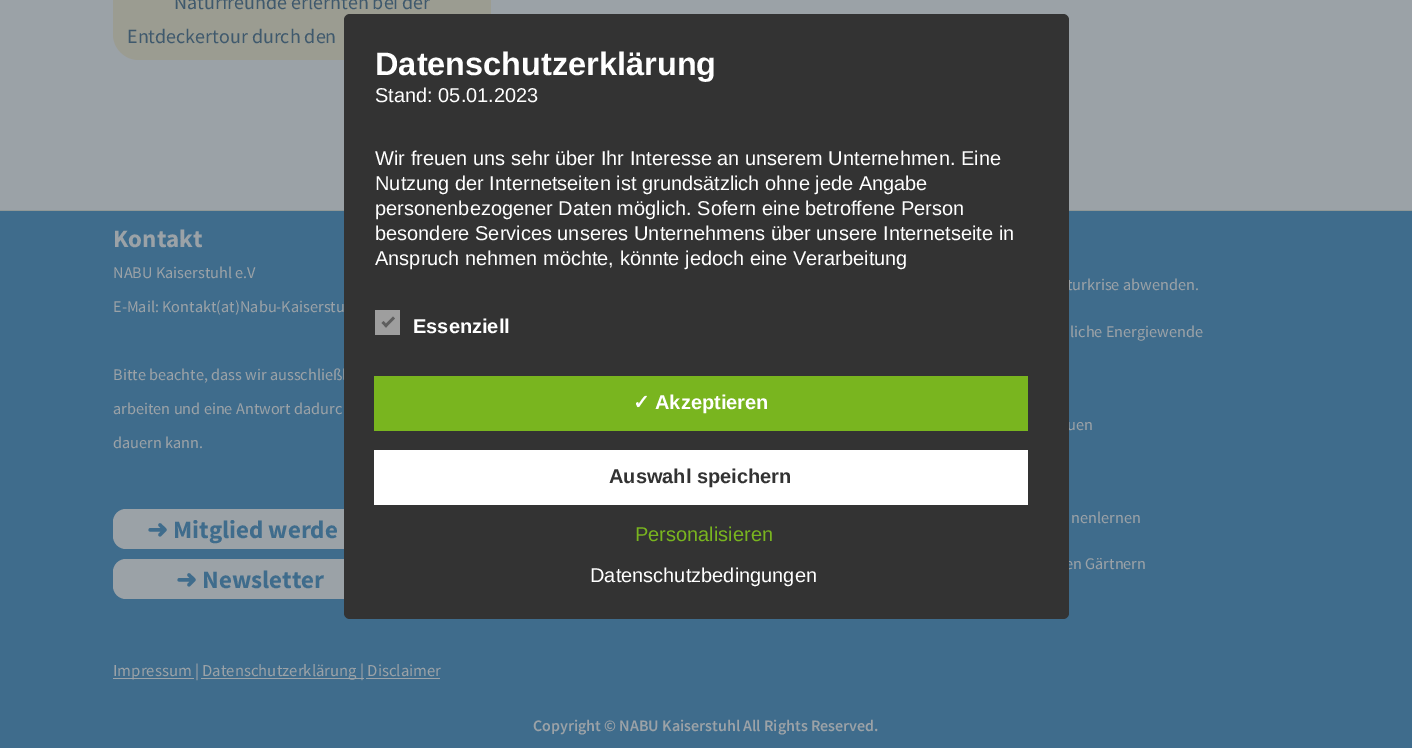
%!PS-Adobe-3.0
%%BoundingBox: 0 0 1412 748
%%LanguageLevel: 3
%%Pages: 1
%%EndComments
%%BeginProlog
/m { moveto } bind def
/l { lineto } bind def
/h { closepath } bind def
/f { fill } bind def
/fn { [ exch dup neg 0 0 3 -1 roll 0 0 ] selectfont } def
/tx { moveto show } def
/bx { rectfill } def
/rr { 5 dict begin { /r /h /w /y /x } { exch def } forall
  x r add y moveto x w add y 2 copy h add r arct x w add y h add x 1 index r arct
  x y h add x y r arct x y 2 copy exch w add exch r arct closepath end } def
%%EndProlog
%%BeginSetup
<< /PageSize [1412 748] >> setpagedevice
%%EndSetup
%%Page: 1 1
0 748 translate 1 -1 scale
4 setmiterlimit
0.608 0.635 0.655 setrgbcolor
0 0 1412 748 bx
0.608 0.612 0.569 setrgbcolor
113 -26 378 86 26 rr f
/SourceSansPro-Regular 20 fn
0.247 0.349 0.427 setrgbcolor
(Naturfreunde erlernten bei der) 174 9 tx
(Entdeckertour durch den) 127 43 tx
0.247 0.424 0.549 setrgbcolor
0 211 1412 537 bx
0.565 0.596 0.592 setrgbcolor
0 210 1412 1 bx
/SourceSansPro-Bold 25 fn
0.608 0.635 0.655 setrgbcolor
(Kontakt) 113 247 tx
/SourceSansPro-Regular 16.25 fn
(NABU Kaiserstuhl e.V) 113 278 tx
(E-Mail: Kontakt\(at\)Nabu-Kaiserstu) 113 312 tx
(Bitte beachte, dass wir ausschließl) 113 380 tx
(arbeiten und eine Antwort dadurc) 113 414 tx
(dauern kann.) 113 448 tx
113 509 275 40 13 rr f
/DejaVuSans-Bold 25 fn
0.247 0.424 0.549 setrgbcolor
(➜) 147 538 tx
/SourceSansPro-Bold 25 fn
(Mitglied werde) 173 538 tx
0.608 0.635 0.655 setrgbcolor
113 559 275 40 13 rr f
/DejaVuSans-Bold 25 fn
0.247 0.424 0.549 setrgbcolor
(➜) 176 588 tx
/SourceSansPro-Bold 25 fn
(Newsletter) 202 588 tx
/SourceSansPro-Regular 16.25 fn
0.608 0.635 0.655 setrgbcolor
(turkrise abwenden.) 1067 290 tx
(liche Energiewende) 1070 337 tx
(uen) 1067 430 tx
(nenlernen) 1071 523 tx
(en Gärtnern) 1065 569 tx
113 678 81 1 bx
/SourceSansPro-Regular 16.7 fn
(Impressum |) 113 676 tx
201 678 163 1 bx
(Datenschutzerklärung | Disclaimer) 202 676 tx
366 678 74 1 bx
/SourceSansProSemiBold-SemiBold 16 fn
(Copyright © NABU Kaiserstuhl All Rights Reserved.) 533 731 tx
0.2 setgray
344 14 725 605 6 rr f
/LiberationSans-Bold 32.5 fn
1 setgray
(Datenschutzerklärung) 375 75 tx
/LiberationSans-Regular 20 fn
(Stand: 05.01.2023) 375 102 tx
(Wir freuen uns sehr über Ihr Interesse an unserem Unternehmen. Eine) 375 165 tx
(Nutzung der Internetseiten ist grundsätzlich ohne jede Angabe) 375 190 tx
(personenbezogener Daten möglich. Sofern eine betroffene Person) 375 215 tx
(besondere Services unseres Unternehmens über unsere Internetseite in) 375 240 tx
(Anspruch nehmen möchte, könnte jedoch eine Verarbeitung) 375 265 tx
0.62 setgray
375 310 25 25 bx
0.369 setgray
393 316.5 m 395 318.5 l 386 327.5 l 384 325.5 l h f
383.5 321 m 387.5 325.5 l 386 327.5 l 381.5 323 l h f
/LiberationSans-Bold 20 fn
1 setgray
(Essenziell) 413 333 tx
0.475 0.71 0.122 setrgbcolor
374 376 654 55 bx
/DejaVuSans-Bold 20 fn
1 setgray
(✓) 633 409 tx
/LiberationSans-Bold 20 fn
(Akzeptieren) 655 409 tx
374 450 654 55 bx
0.2 setgray
(Auswahl speichern) 609 483 tx
/LiberationSans-Regular 20 fn
0.475 0.71 0.122 setrgbcolor
(Personalisieren) 635 541 tx
1 setgray
(Datenschutzbedingungen) 590 582 tx
showpage
%%EOF
